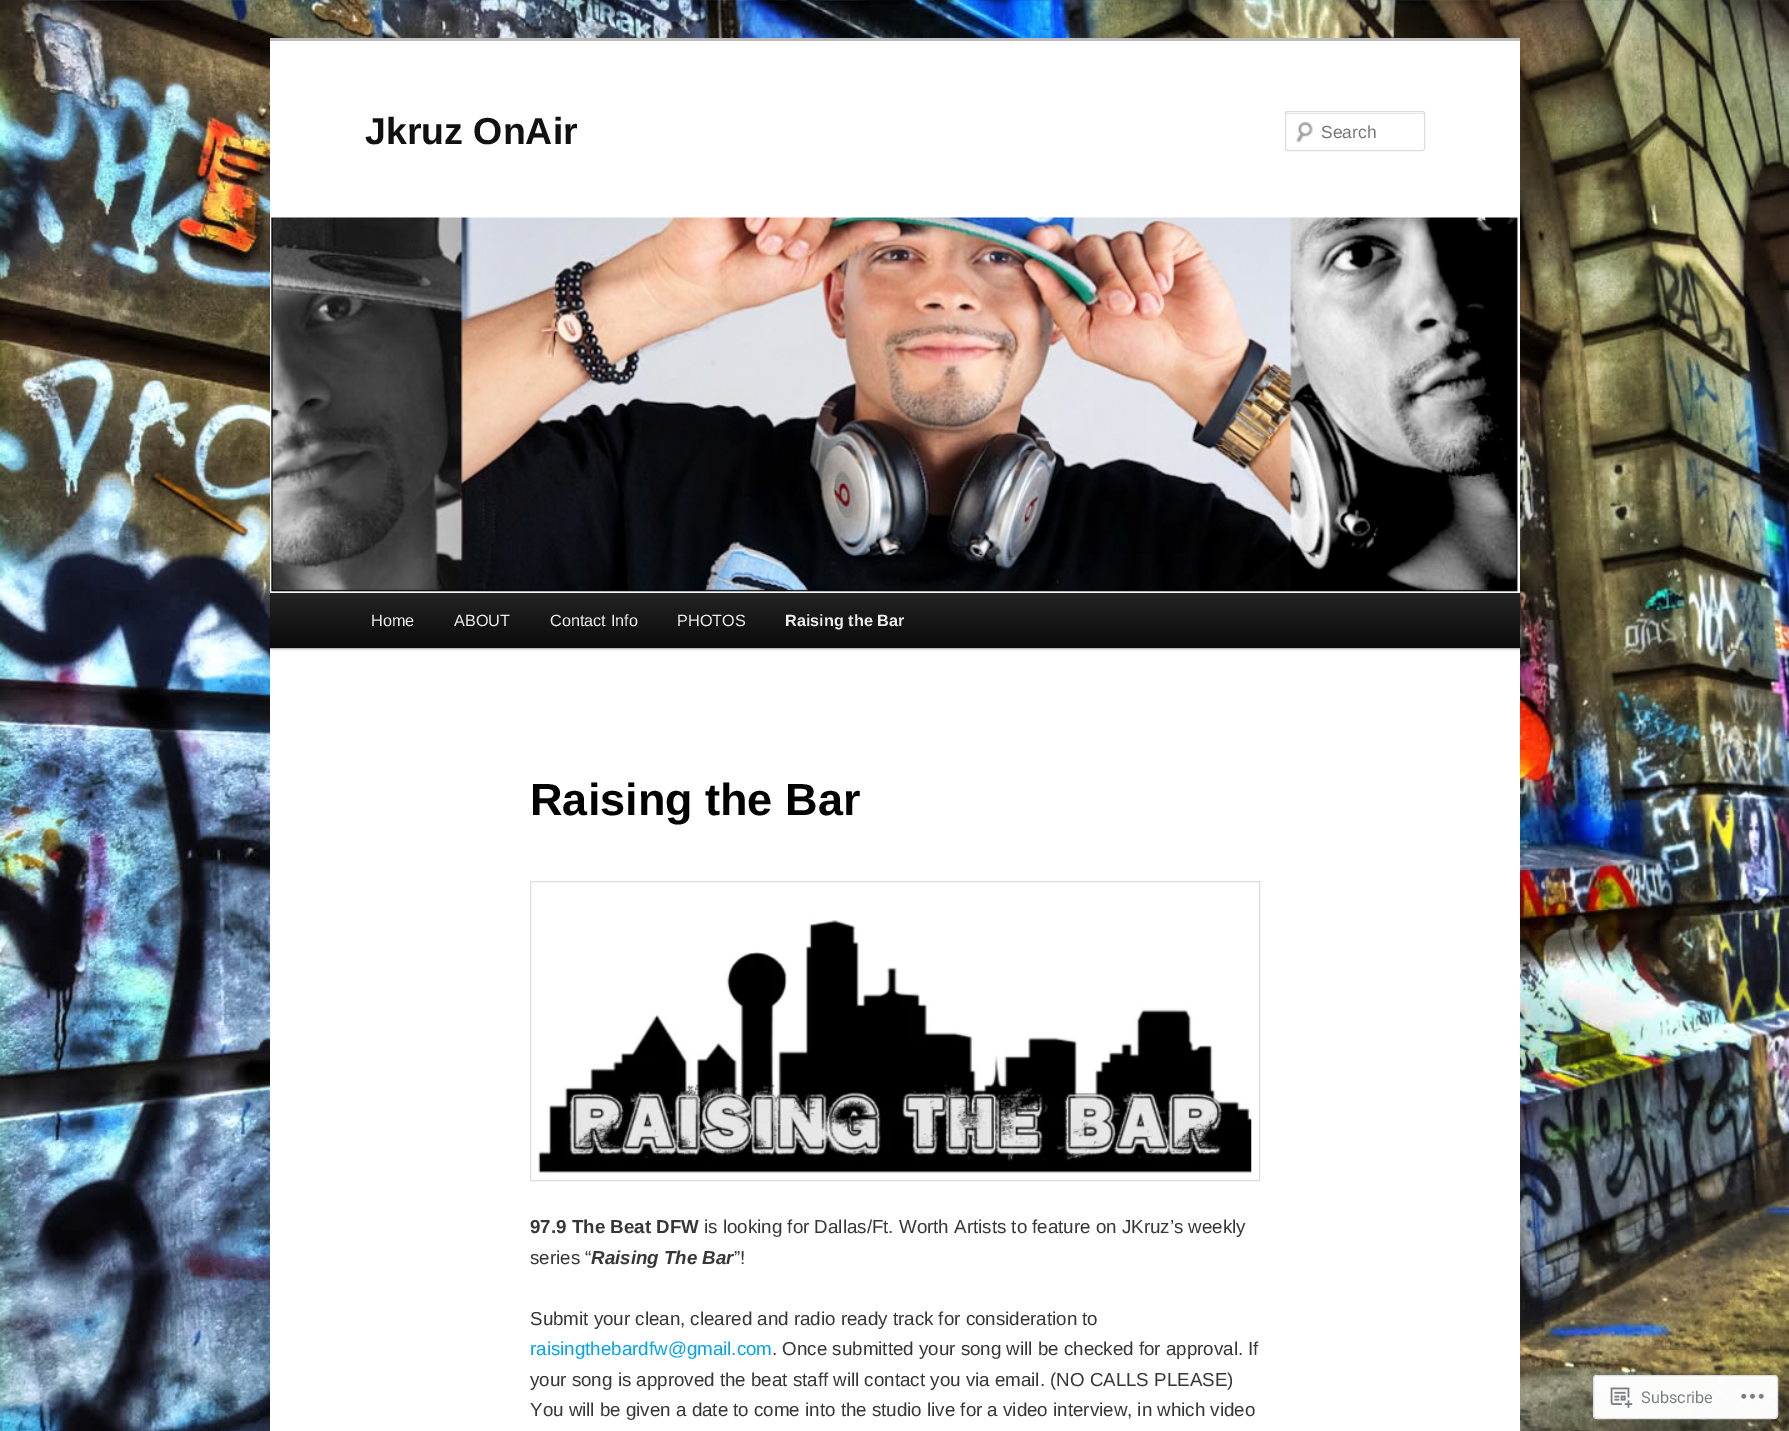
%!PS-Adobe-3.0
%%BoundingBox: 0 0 1789 1431
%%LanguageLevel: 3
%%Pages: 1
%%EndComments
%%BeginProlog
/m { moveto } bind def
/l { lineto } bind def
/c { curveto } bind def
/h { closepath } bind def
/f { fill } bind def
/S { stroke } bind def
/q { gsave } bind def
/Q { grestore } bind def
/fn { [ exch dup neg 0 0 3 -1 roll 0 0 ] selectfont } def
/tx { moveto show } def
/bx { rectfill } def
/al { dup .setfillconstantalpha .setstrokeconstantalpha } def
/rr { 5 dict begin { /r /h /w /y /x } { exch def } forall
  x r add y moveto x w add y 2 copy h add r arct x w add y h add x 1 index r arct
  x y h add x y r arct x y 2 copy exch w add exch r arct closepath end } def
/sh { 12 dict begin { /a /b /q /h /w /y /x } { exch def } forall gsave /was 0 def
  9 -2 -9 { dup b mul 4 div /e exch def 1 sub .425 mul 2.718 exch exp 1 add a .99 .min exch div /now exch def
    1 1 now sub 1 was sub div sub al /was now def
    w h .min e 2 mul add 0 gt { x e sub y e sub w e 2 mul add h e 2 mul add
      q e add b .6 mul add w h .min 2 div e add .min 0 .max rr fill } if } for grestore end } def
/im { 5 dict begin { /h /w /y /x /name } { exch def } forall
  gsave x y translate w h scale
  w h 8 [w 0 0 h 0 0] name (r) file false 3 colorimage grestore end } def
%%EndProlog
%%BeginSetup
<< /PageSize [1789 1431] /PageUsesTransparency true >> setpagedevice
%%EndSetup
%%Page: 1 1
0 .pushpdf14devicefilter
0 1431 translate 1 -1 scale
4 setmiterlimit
1 setgray
0 0 1789 1431 bx
(image0.raw) 0 0 1789 1431 im
270 41 1250 1390 bx
0.733 setgray
270 38 1250 3 bx
/LiberationSans-Bold 37.5 fn
0.067 setgray
(Jkruz OnAir) 365 144 tx
(image1.raw) 1296 121 17 22 im
0.902 setgray
1288 114 m 1422 114 l 1423 114 1424 114 1424 115 c 1424 114 1424 113 1423 113 c 1287 113 l 1286 113 1286 114 1286 115 c 1286 114 1287 114 1288 114 c h f
0.867 setgray
1285.5 111.5 139 39 2 rr S
/LiberationSans-Regular 17.5 fn
0.459 setgray
(Search) 1321 138 tx
0 setgray
270 594 1250 55 0 1 0.4 sh
(image2.raw) 271 217 1247 375 im
q 270 593 m 1520 593 l 1520 648 l 270 648 l h clip newpath
<< /ShadingType 2 /ColorSpace /DeviceRGB /Coords [895 592 895 648] /Extend [true true] /Function << /FunctionType 2 /Domain [0 1] /C0 [0.145 0.145 0.145] /C1 [0.039 0.039 0.039] /N 1 >> >> shfill Q
/LiberationSans-Regular 16.25 fn
0.933 setgray
(Home) 371 626 tx
(ABOUT) 454 626 tx
(Contact Info) 550 626 tx
(PHOTOS) 677 626 tx
/LiberationSans-Bold 16.25 fn
(Raising the Bar) 785 626 tx
/LiberationSans-Bold 45 fn
0 setgray
(Raising the Bar) 530 815 tx
0.867 setgray
530.5 881.5 729 299 rectstroke
(image3.raw) 538 919 714 254 im
/LiberationSans-Bold 18.75 fn
0.216 setgray
(97.9 The Beat DFW) 530 1233 tx
/LiberationSans-Regular 18.75 fn
(is looking for Dallas/Ft. Worth Artists to feature on JKruz’s weekly) 704 1233 tx
(series “) 530 1264 tx
/LiberationSans-BoldItalic 18.75 fn
(Raising The Bar) 591 1264 tx
/LiberationSans-Regular 18.75 fn
(”!) 734 1264 tx
(Submit your clean, cleared and radio ready track for consideration to) 530 1325 tx
0.016 0.643 0.925 setrgbcolor
(raisingthebardfw@gmail.com) 530 1355 tx
0.216 setgray
(. Once submitted your song will be checked for approval. If) 772 1355 tx
(your song is approved the beat staff will contact you via email. \(NO CALLS PLEASE\)) 530 1386 tx
(You will be given a date to come into the studio live for a video interview, in which video) 530 1416 tx
0.98 al
1 setgray
1593 1375 185 44 4 rr f
0.863 0.863 0.871 setrgbcolor
1593.5 1375.5 184 43 3.5 rr S
1 al
(image4.raw) 1610 1387 23 21 im
/Roboto-Regular 16.25 fn
0.482 0.498 0.518 setrgbcolor
(Subscribe) 1641 1403 tx
(image5.raw) 1741 1393 23 6 im
.poppdf14devicefilter showpage
%%EOF
